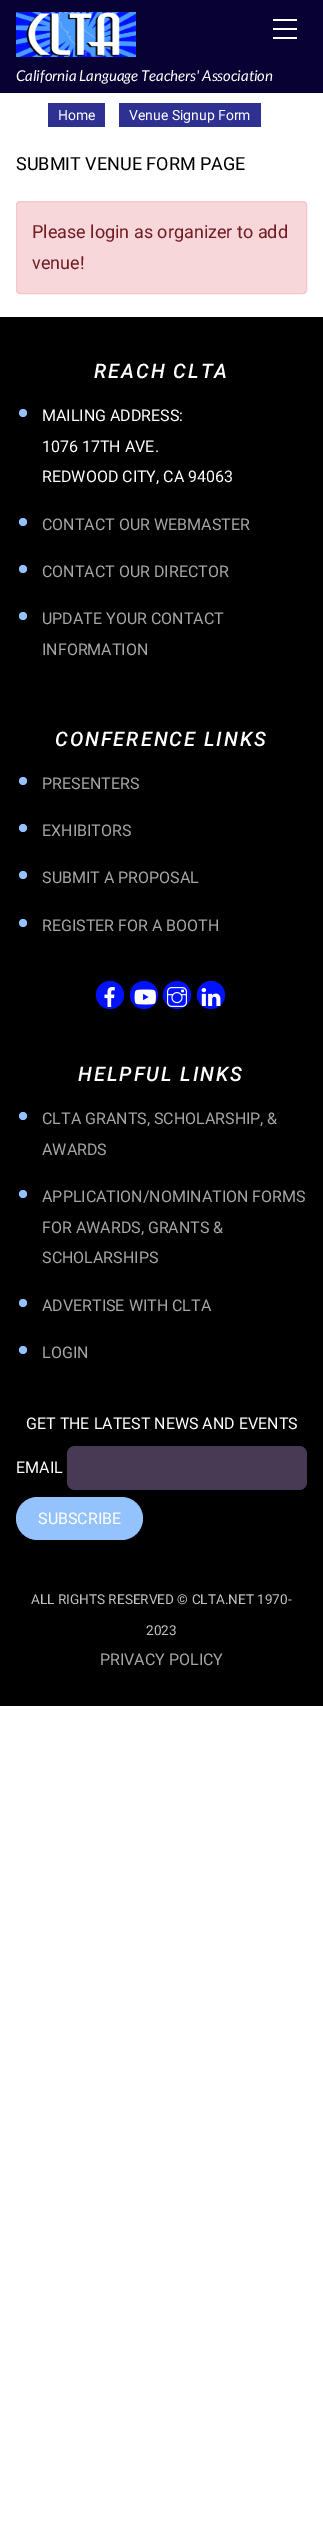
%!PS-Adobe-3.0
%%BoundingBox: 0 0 323 2527
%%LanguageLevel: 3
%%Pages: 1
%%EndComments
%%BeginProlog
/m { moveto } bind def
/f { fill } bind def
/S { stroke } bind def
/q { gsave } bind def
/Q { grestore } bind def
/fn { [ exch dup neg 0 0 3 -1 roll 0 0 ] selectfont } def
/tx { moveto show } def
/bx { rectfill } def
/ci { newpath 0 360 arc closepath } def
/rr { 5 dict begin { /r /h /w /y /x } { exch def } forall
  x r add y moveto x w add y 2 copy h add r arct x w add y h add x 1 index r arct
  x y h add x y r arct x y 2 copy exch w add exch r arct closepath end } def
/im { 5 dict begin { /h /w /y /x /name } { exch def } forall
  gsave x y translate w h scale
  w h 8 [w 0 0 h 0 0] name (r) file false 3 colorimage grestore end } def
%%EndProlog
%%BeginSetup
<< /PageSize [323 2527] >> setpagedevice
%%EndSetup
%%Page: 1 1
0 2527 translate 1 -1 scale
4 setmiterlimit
1 setgray
0 0 323 2527 bx
0.031 0.004 0.2 setrgbcolor
0 0 323 93 bx
1 setgray
273 19 24 2 bx
273 37 24 2 bx
273 28 24 2 bx
(image0.raw) 16 12 120 45 im
/Lato-Italic 15 fn
(California Language Teachers' Association) 16 81 tx
0.18 0.192 0.573 setrgbcolor
48 103 57 24 bx
/Roboto-Regular 14 fn
1 setgray
(Home) 58 120 tx
0.18 0.192 0.573 setrgbcolor
119 103 142 24 bx
1 setgray
(Venue Signup Form) 129 120 tx
/Roboto-Regular 18 fn
0 setgray
(SUBMIT VENUE FORM PAGE) 16 170 tx
0.973 0.843 0.855 setrgbcolor
16.5 201.5 290 92 3.5 rr q f Q
0.961 0.776 0.796 setrgbcolor
S
0.447 0.11 0.141 setrgbcolor
(Please login as organizer to add) 32 238 tx
(venue!) 32 269 tx
0 setgray
0 317 323 1389 bx
/Roboto-MediumItalic 20 fn
1 setgray
94 378 m 2 0 (REACH CLTA) ashow
0.58 0.761 0.992 setrgbcolor
23 413 4 ci f
/Roboto-Regular 16 fn
1 setgray
(MAILING ADDRESS:) 42 421 tx
(1076 17TH AVE.) 42 452 tx
(REDWOOD CITY, CA 94063) 42 482 tx
0.58 0.761 0.992 setrgbcolor
23 522 4 ci f
0.651 setgray
(CONTACT OUR WEBMASTER) 42 530 tx
0.58 0.761 0.992 setrgbcolor
23 569 4 ci f
0.651 setgray
(CONTACT OUR DIRECTOR) 42 577 tx
0.58 0.761 0.992 setrgbcolor
23 616 4 ci f
0.651 setgray
(UPDATE YOUR CONTACT) 42 624 tx
(INFORMATION) 42 655 tx
/Roboto-MediumItalic 20 fn
1 setgray
55 746 m 2 0 (CONFERENCE LINKS) ashow
0.58 0.761 0.992 setrgbcolor
23 781 4 ci f
/Roboto-Regular 16 fn
0.651 setgray
(PRESENTERS) 42 789 tx
0.58 0.761 0.992 setrgbcolor
23 828 4 ci f
0.651 setgray
(EXHIBITORS) 42 836 tx
0.58 0.761 0.992 setrgbcolor
23 875 4 ci f
0.651 setgray
(SUBMIT A PROPOSAL) 42 883 tx
0.58 0.761 0.992 setrgbcolor
23 923 4 ci f
0.651 setgray
(REGISTER FOR A BOOTH) 42 931 tx
0.004 0.071 0.996 setrgbcolor
110 995 14 ci f
(image1.raw) 104 987 11 20 im
144 995 14 ci f
(image2.raw) 134 989 22 16 im
177 995 14 ci f
(image3.raw) 167 987 20 20 im
211 995 14 ci f
(image4.raw) 201 988 20 18 im
/Roboto-MediumItalic 20 fn
1 setgray
78 1081 m 2 0 (HELPFUL LINKS) ashow
0.58 0.761 0.992 setrgbcolor
23 1116 4 ci f
/Roboto-Regular 16 fn
0.651 setgray
(CLTA GRANTS, SCHOLARSHIP, &) 42 1124 tx
(AWARDS) 42 1155 tx
0.58 0.761 0.992 setrgbcolor
23 1194 4 ci f
0.651 setgray
(APPLICATION/NOMINATION FORMS) 42 1202 tx
(FOR AWARDS, GRANTS &) 42 1233 tx
(SCHOLARSHIPS) 42 1263 tx
0.58 0.761 0.992 setrgbcolor
23 1303 4 ci f
0.651 setgray
(ADVERTISE WITH CLTA) 42 1311 tx
0.58 0.761 0.992 setrgbcolor
23 1350 4 ci f
0.651 setgray
(LOGIN) 42 1358 tx
1 setgray
(GET THE LATEST NEWS AND EVENTS) 26 1429 tx
(EMAIL) 16 1473 tx
0.282 0.227 0.333 setrgbcolor
67 1446 240 44 8 rr f
0.58 0.761 0.992 setrgbcolor
16 1497 127 43 21.5 rr f
1 setgray
(SUBSCRIBE) 38 1524 tx
/Roboto-Regular 13.6 fn
0.761 setgray
(ALL RIGHTS RESERVED © CLTA.NET 1970-) 31 1604 tx
(2023) 146 1635 tx
/Roboto-Regular 16 fn
0.651 setgray
(PRIVACY POLICY) 100 1665 tx
showpage
%%EOF
